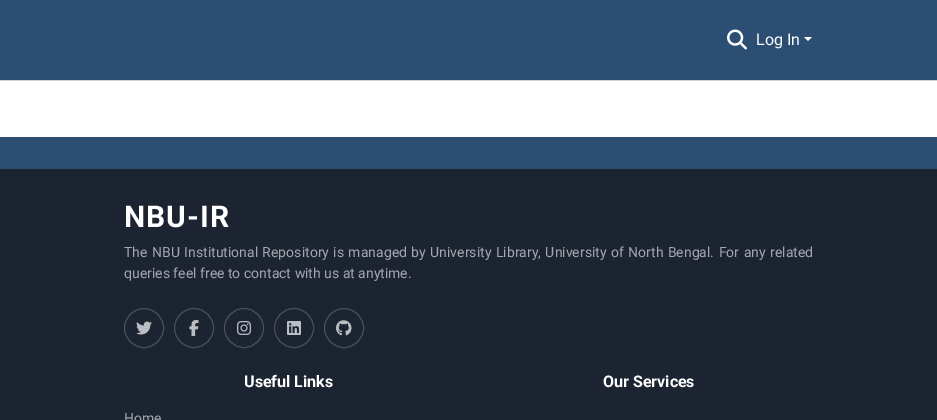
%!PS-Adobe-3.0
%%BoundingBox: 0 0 937 420
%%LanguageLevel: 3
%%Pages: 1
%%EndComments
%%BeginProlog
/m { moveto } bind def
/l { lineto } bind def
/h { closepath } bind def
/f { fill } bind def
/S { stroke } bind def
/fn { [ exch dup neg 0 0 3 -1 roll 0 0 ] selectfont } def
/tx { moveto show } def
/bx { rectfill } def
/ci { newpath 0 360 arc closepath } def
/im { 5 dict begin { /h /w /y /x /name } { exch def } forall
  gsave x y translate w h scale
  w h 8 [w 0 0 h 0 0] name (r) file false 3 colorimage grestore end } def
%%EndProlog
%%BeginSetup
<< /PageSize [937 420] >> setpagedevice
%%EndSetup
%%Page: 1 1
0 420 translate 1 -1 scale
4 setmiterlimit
1 setgray
0 0 937 420 bx
0.808 0.831 0.855 setrgbcolor
0 80 937 1 bx
0.169 0.306 0.447 setrgbcolor
0 0 937 80 bx
(image0.raw) 727 29 20 21 im
/Roboto-Regular 16 fn
1 setgray
(Log In) 756 45 tx
804 37 m 812 37 l 808 41 l h f
0.11 0.137 0.192 setrgbcolor
0 169 937 251 bx
0.169 0.306 0.447 setrgbcolor
0 137 937 32 bx
/Roboto-Bold 30 fn
1 setgray
124 227 m 1 0 (NBU-IR) ashow
/Roboto-Regular 14 fn
0.643 0.655 0.678 setrgbcolor
124 257 m 1 0 32 (The NBU Institutional Repository is managed by University Library, University of North Bengal. For any related) widthshow
(queries feel free to contact with us at anytime.) 124 278 tx
0.286 0.31 0.353 setrgbcolor
144 328 19.5 ci S
(image1.raw) 136 321 16 14 im
194 328 19.5 ci S
(image2.raw) 189 320 10 16 im
244 328 19.5 ci S
(image3.raw) 237 321 14 14 im
294 328 19.5 ci S
(image4.raw) 287 321 14 14 im
344 328 19.5 ci S
(image5.raw) 336 320 16 16 im
/Roboto-Bold 16 fn
1 setgray
(Useful Links) 244 387 tx
/Roboto-Regular 14 fn
0.643 0.655 0.678 setrgbcolor
(Home) 124 423 tx
/Roboto-Bold 16 fn
1 setgray
(Our Services) 603 387 tx
showpage
%%EOF
